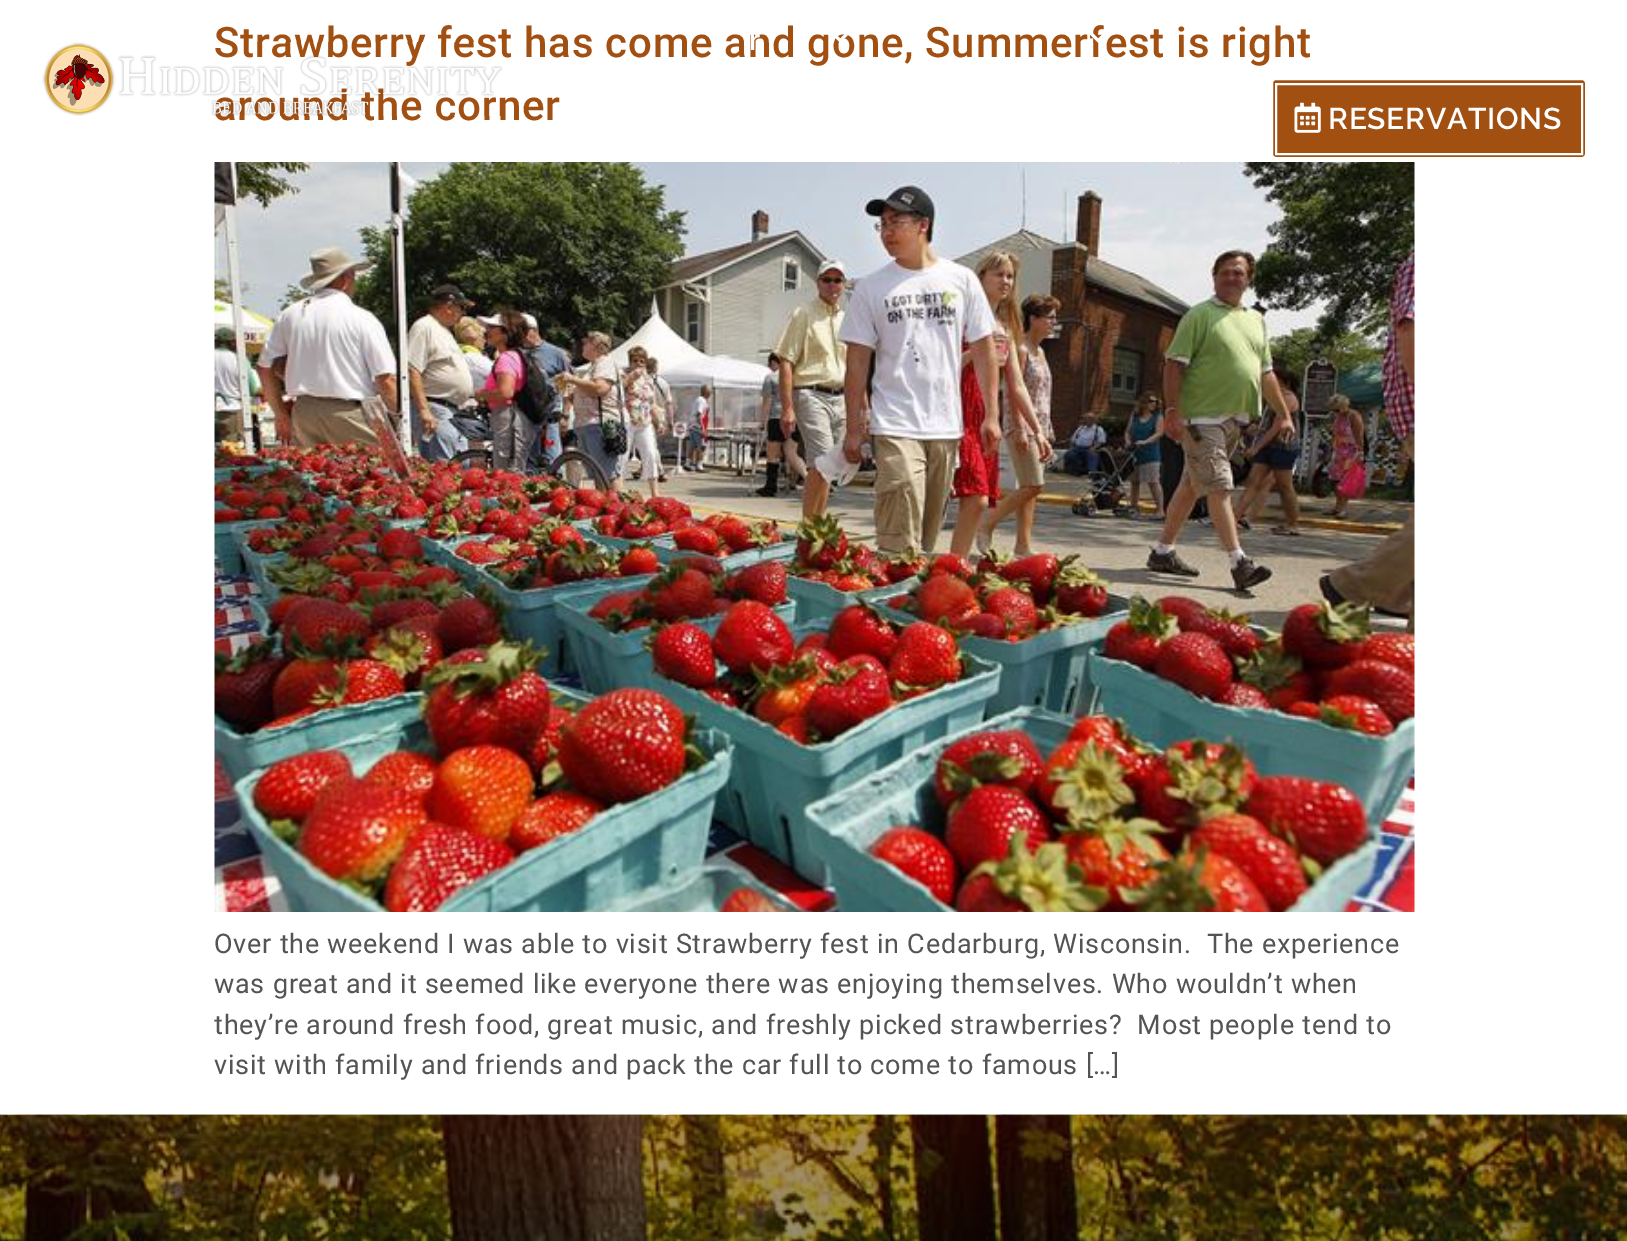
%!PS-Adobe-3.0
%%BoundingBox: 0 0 1627 1241
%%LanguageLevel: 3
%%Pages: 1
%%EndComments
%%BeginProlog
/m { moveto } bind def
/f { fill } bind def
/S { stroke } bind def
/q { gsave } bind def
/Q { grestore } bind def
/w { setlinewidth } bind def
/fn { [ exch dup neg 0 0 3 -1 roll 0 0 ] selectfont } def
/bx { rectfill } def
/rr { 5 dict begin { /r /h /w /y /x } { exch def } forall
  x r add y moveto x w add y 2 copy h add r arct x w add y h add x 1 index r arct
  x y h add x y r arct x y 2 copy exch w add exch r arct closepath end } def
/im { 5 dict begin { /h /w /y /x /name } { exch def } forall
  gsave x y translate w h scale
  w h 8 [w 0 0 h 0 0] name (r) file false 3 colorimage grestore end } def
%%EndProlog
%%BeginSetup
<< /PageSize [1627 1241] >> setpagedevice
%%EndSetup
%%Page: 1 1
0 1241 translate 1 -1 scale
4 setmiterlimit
1 setgray
0 0 1627 1241 bx
/Roboto-Medium 42 fn
0.635 0.31 0.071 setrgbcolor
214 57 m 0.75 0 (Strawberry fest has come and gone, Summerfest is right) ashow
214 120 m 0.75 0 (around the corner) ashow
(image0.raw) 214 162 1201 750 im
/Roboto-Regular 27 fn
0.329 setgray
214 953 m 0.75 0 (Over the weekend I was able to visit Strawberry fest in Cedarburg, Wisconsin.  The experience) ashow
214 993 m 0.75 0 (was great and it seemed like everyone there was enjoying themselves. Who wouldn’t when) ashow
214 1034 m 0.75 0 (they’re around fresh food, great music, and freshly picked strawberries?  Most people tend to) ashow
214 1074 m 0.75 0 (visit with family and friends and pack the car full to come to famous […]) ashow
(image1.raw) 42 42 461 74 im
/Raleway-SemiBold 30 fn
1 setgray
749 50 m 0.75 0 (r) ashow
(image2.raw) 835 34 13 8 im
(image3.raw) 1090 33 13 10 im
0.635 0.31 0.071 setrgbcolor
1272 79 314 79 4 rr q f Q
1 setgray
2 w
S
1276 84 306 70 rectstroke
(image4.raw) 1294 102 27 31 im
1328 129 m 0.75 0 (RESERVATIONS) ashow
(image5.raw) 0 1114 1627 127 im
showpage
%%EOF
